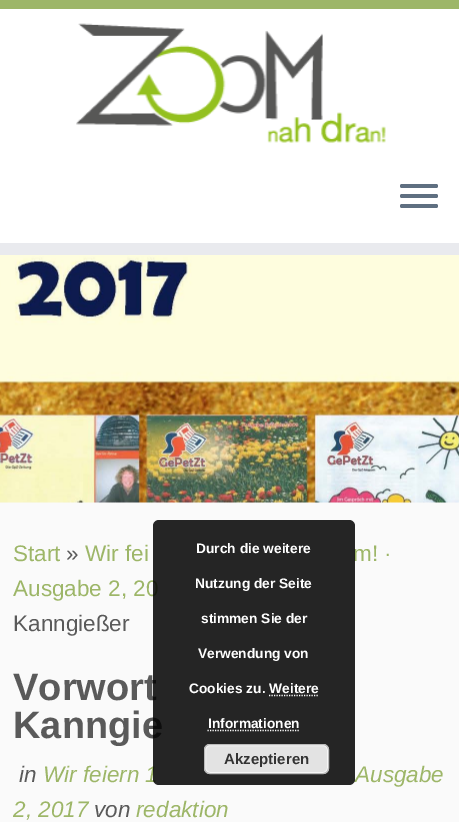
%!PS-Adobe-3.0
%%BoundingBox: 0 0 459 822
%%LanguageLevel: 3
%%Pages: 1
%%EndComments
%%BeginProlog
/m { moveto } bind def
/l { lineto } bind def
/f { fill } bind def
/S { stroke } bind def
/w { setlinewidth } bind def
/fn { [ exch dup neg 0 0 3 -1 roll 0 0 ] selectfont } def
/tx { moveto show } def
/bx { rectfill } def
/al { dup .setfillconstantalpha .setstrokeconstantalpha } def
/rr { 5 dict begin { /r /h /w /y /x } { exch def } forall
  x r add y moveto x w add y 2 copy h add r arct x w add y h add x 1 index r arct
  x y h add x y r arct x y 2 copy exch w add exch r arct closepath end } def
/im { 5 dict begin { /h /w /y /x /name } { exch def } forall
  gsave x y translate w h scale
  w h 8 [w 0 0 h 0 0] name (r) file false 3 colorimage grestore end } def
%%EndProlog
%%BeginSetup
<< /PageSize [459 822] /PageUsesTransparency true >> setpagedevice
%%EndSetup
%%Page: 1 1
0 .pushpdf14devicefilter
0 822 translate 1 -1 scale
4 setmiterlimit
0.98 setgray
0 0 459 822 bx
/LiberationSans-Regular 22.5 fn
0.616 0.714 0.408 setrgbcolor
(m! ·) 353 561 tx
(Ausgabe 2, 20) 13 596 tx
/LiberationSans-Bold 38 fn
0.353 setgray
(Vorwort) 13 700 tx
(Kanngie) 13 738 tx
/LiberationSans-Italic 22.5 fn
0.616 0.714 0.408 setrgbcolor
(Wir feiern 1) 43 782 tx
(Ausgabe) 355 782 tx
0.85 al
0 setgray
153 520 202 265 6 rr f
/LiberationSans-Bold 13.75 fn
1 al
1 setgray
(Durch die weitere) 196 553 tx
(Nutzung der Seite) 195 588 tx
(stimmen Sie der) 201 623 tx
(Verwendung von) 198 658 tx
(Cookies zu. Weitere) 189 693 tx
(Informationen) 208 728 tx
1.2 w
[1.25 1.25] 0 setdash
269 695.5 m 319 695.5 l S
207.5 730.5 m 300 730.5 l S
0.89 setgray
204 744 125 30 6 rr f
0.965 setgray
1 w
[] 0 setdash
205.5 745.5 122 27 4.5 rr S
0.733 setgray
204.5 744.5 124 29 5.5 rr S
/LiberationSans-Bold 15 fn
0.2 setgray
(Akzeptieren) 224 764 tx
1 setgray
0 9 459 234 bx
0.616 0.714 0.408 setrgbcolor
0 0 459 9 bx
0.914 0.918 0.933 setrgbcolor
0 243 459 12 bx
(image0.raw) 76 23 310 120 im
0.373 0.435 0.506 setrgbcolor
400 184 38 4 2 rr f
400 194 38 4 2 rr f
400 204 38 4 2 rr f
(image1.raw) 0 255 459 248 im
/LiberationSans-Regular 22.5 fn
0.616 0.714 0.408 setrgbcolor
(Start) 13 561 tx
0.353 setgray
(») 66 561 tx
0.616 0.714 0.408 setrgbcolor
(Wir fei) 85 561 tx
0.353 setgray
(Kanngießer) 13 631 tx
/LiberationSans-Italic 22.5 fn
(in) 19 782 tx
0.616 0.714 0.408 setrgbcolor
(2, 2017) 13 817 tx
0.353 setgray
(von) 94 817 tx
0.616 0.714 0.408 setrgbcolor
(redaktion) 136 817 tx
.poppdf14devicefilter showpage
%%EOF
